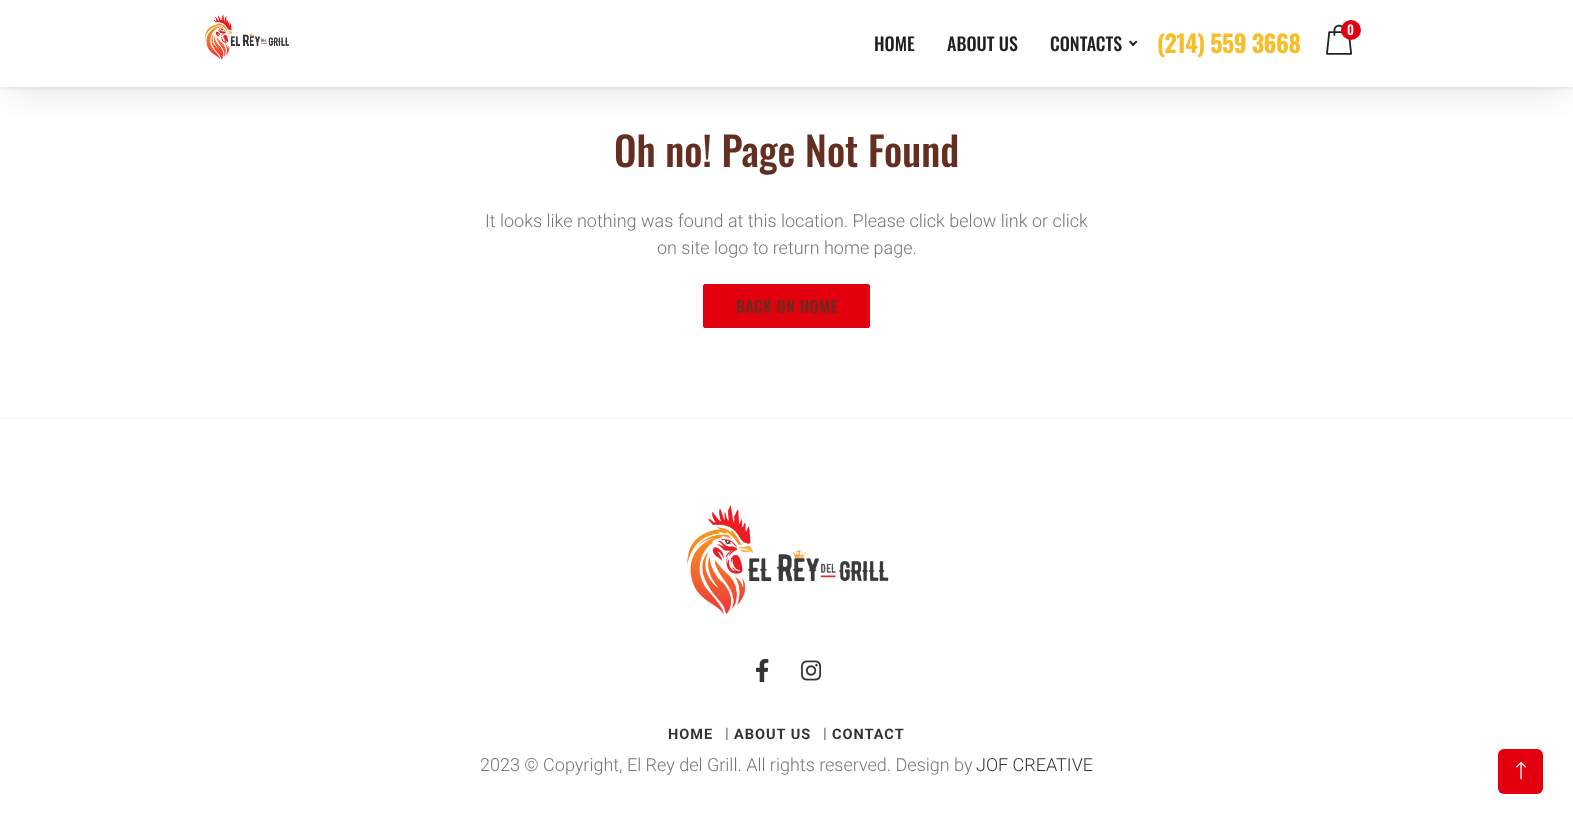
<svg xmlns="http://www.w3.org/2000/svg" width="1573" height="824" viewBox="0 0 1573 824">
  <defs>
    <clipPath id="clip1"><rect x="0" y="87" width="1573" height="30"/></clipPath>
  </defs>
  <rect width="100%" height="100%" fill="rgb(255,255,255)"/>
  <rect x="0" y="2" width="1573" height="87" fill="rgba(96,96,96,0.1)" filter="blur(1.5px)"/>
  <rect x="0" y="1" width="1573" height="86" fill="rgb(255,255,255)"/>
  <g clip-path="url(#clip1)">
    <rect x="5" y="42" width="1563" height="50" rx="25" fill="rgba(0,0,0,0.1)" filter="blur(20px)"/>
  </g>
  <image x="205" y="14" width="85" height="46" href="pic1.png"/>
  <image x="1326" y="24" width="26" height="31" href="pic2.png"/>
  <circle cx="1351" cy="30" r="10" fill="rgb(227,0,14)"/>
  <text x="1347" y="35" font-family="Oswald" font-size="13" font-weight="500" fill="rgb(255,255,255)">0</text>
  <g font-family="Oswald" font-size="18" font-weight="500" fill="rgb(33,33,33)">
    <text x="874" y="51">HOME</text>
    <text x="947" y="51">ABOUT US</text>
    <text x="1050" y="51">CONTACTS</text>
  </g>
  <path d="M1137.5 42L1133 46L1131.5 45L1136 40.5Z" fill="rgb(33,33,33)"/>
  <path d="M1134.5 45L1133 46L1129 42L1130.5 40.5Z" fill="rgb(33,33,33)"/>
  <text x="1157" y="53" font-family="Oswald" font-size="24" font-weight="bold" letter-spacing="-0.5" fill="rgb(247,190,39)">(214) 559 3668</text>
  <text x="614" y="167" font-family="Oswald" font-size="40" font-weight="500" fill="rgb(100,47,33)">Oh no! Page Not Found</text>
  <g font-family="Roboto" font-size="18" font-weight="300" fill="rgb(117,117,117)">
    <text x="485" y="227">It looks like nothing was found at this location. Please click below link or click</text>
    <text x="657" y="254">on site logo to return home page.</text>
  </g>
  <rect x="703.5" y="284.5" width="166" height="43" rx="1.5" fill="rgb(227,0,14)" stroke="rgb(227,0,14)"/>
  <text x="736" y="313" font-family="Oswald" font-size="16" font-weight="500" letter-spacing="0.5" fill="rgb(100,47,33)">BACK ON HOME</text>
  <rect x="0" y="418" width="1573" height="1" fill="rgb(246,249,250)"/>
  <image x="687" y="505" width="202" height="109" href="pic3.png"/>
  <image x="756" y="659" width="13" height="23" href="pic4.png"/>
  <image x="801" y="660" width="21" height="21" href="pic5.png"/>
  <text x="668" y="739" font-family="Roboto" font-size="14.5" font-weight="bold" letter-spacing="1" fill="rgb(51,51,51)">HOME</text>
  <text x="725" y="738" font-family="Roboto" font-size="14.5" font-weight="bold" letter-spacing="1" fill="rgb(117,117,117)">|</text>
  <text x="734" y="739" font-family="Roboto" font-size="14.5" font-weight="bold" letter-spacing="1" fill="rgb(51,51,51)">ABOUT US</text>
  <text x="823" y="738" font-family="Roboto" font-size="14.5" font-weight="bold" letter-spacing="1" fill="rgb(117,117,117)">|</text>
  <text x="832" y="739" font-family="Roboto" font-size="14.5" font-weight="bold" letter-spacing="1" fill="rgb(51,51,51)">CONTACT</text>
  <text x="480" y="771" font-family="Roboto" font-size="18" font-weight="300" fill="rgb(117,117,117)">2023 © Copyright, El Rey del Grill. All rights reserved. Design by</text>
  <text x="976" y="771" font-family="Roboto" font-size="18" font-weight="300" fill="rgb(51,51,51)">JOF CREATIVE</text>
  <rect x="1498" y="749" width="45" height="45" rx="6" fill="rgb(227,0,14)"/>
  <image x="1516" y="761" width="10" height="19" href="pic6.png"/>
</svg>
